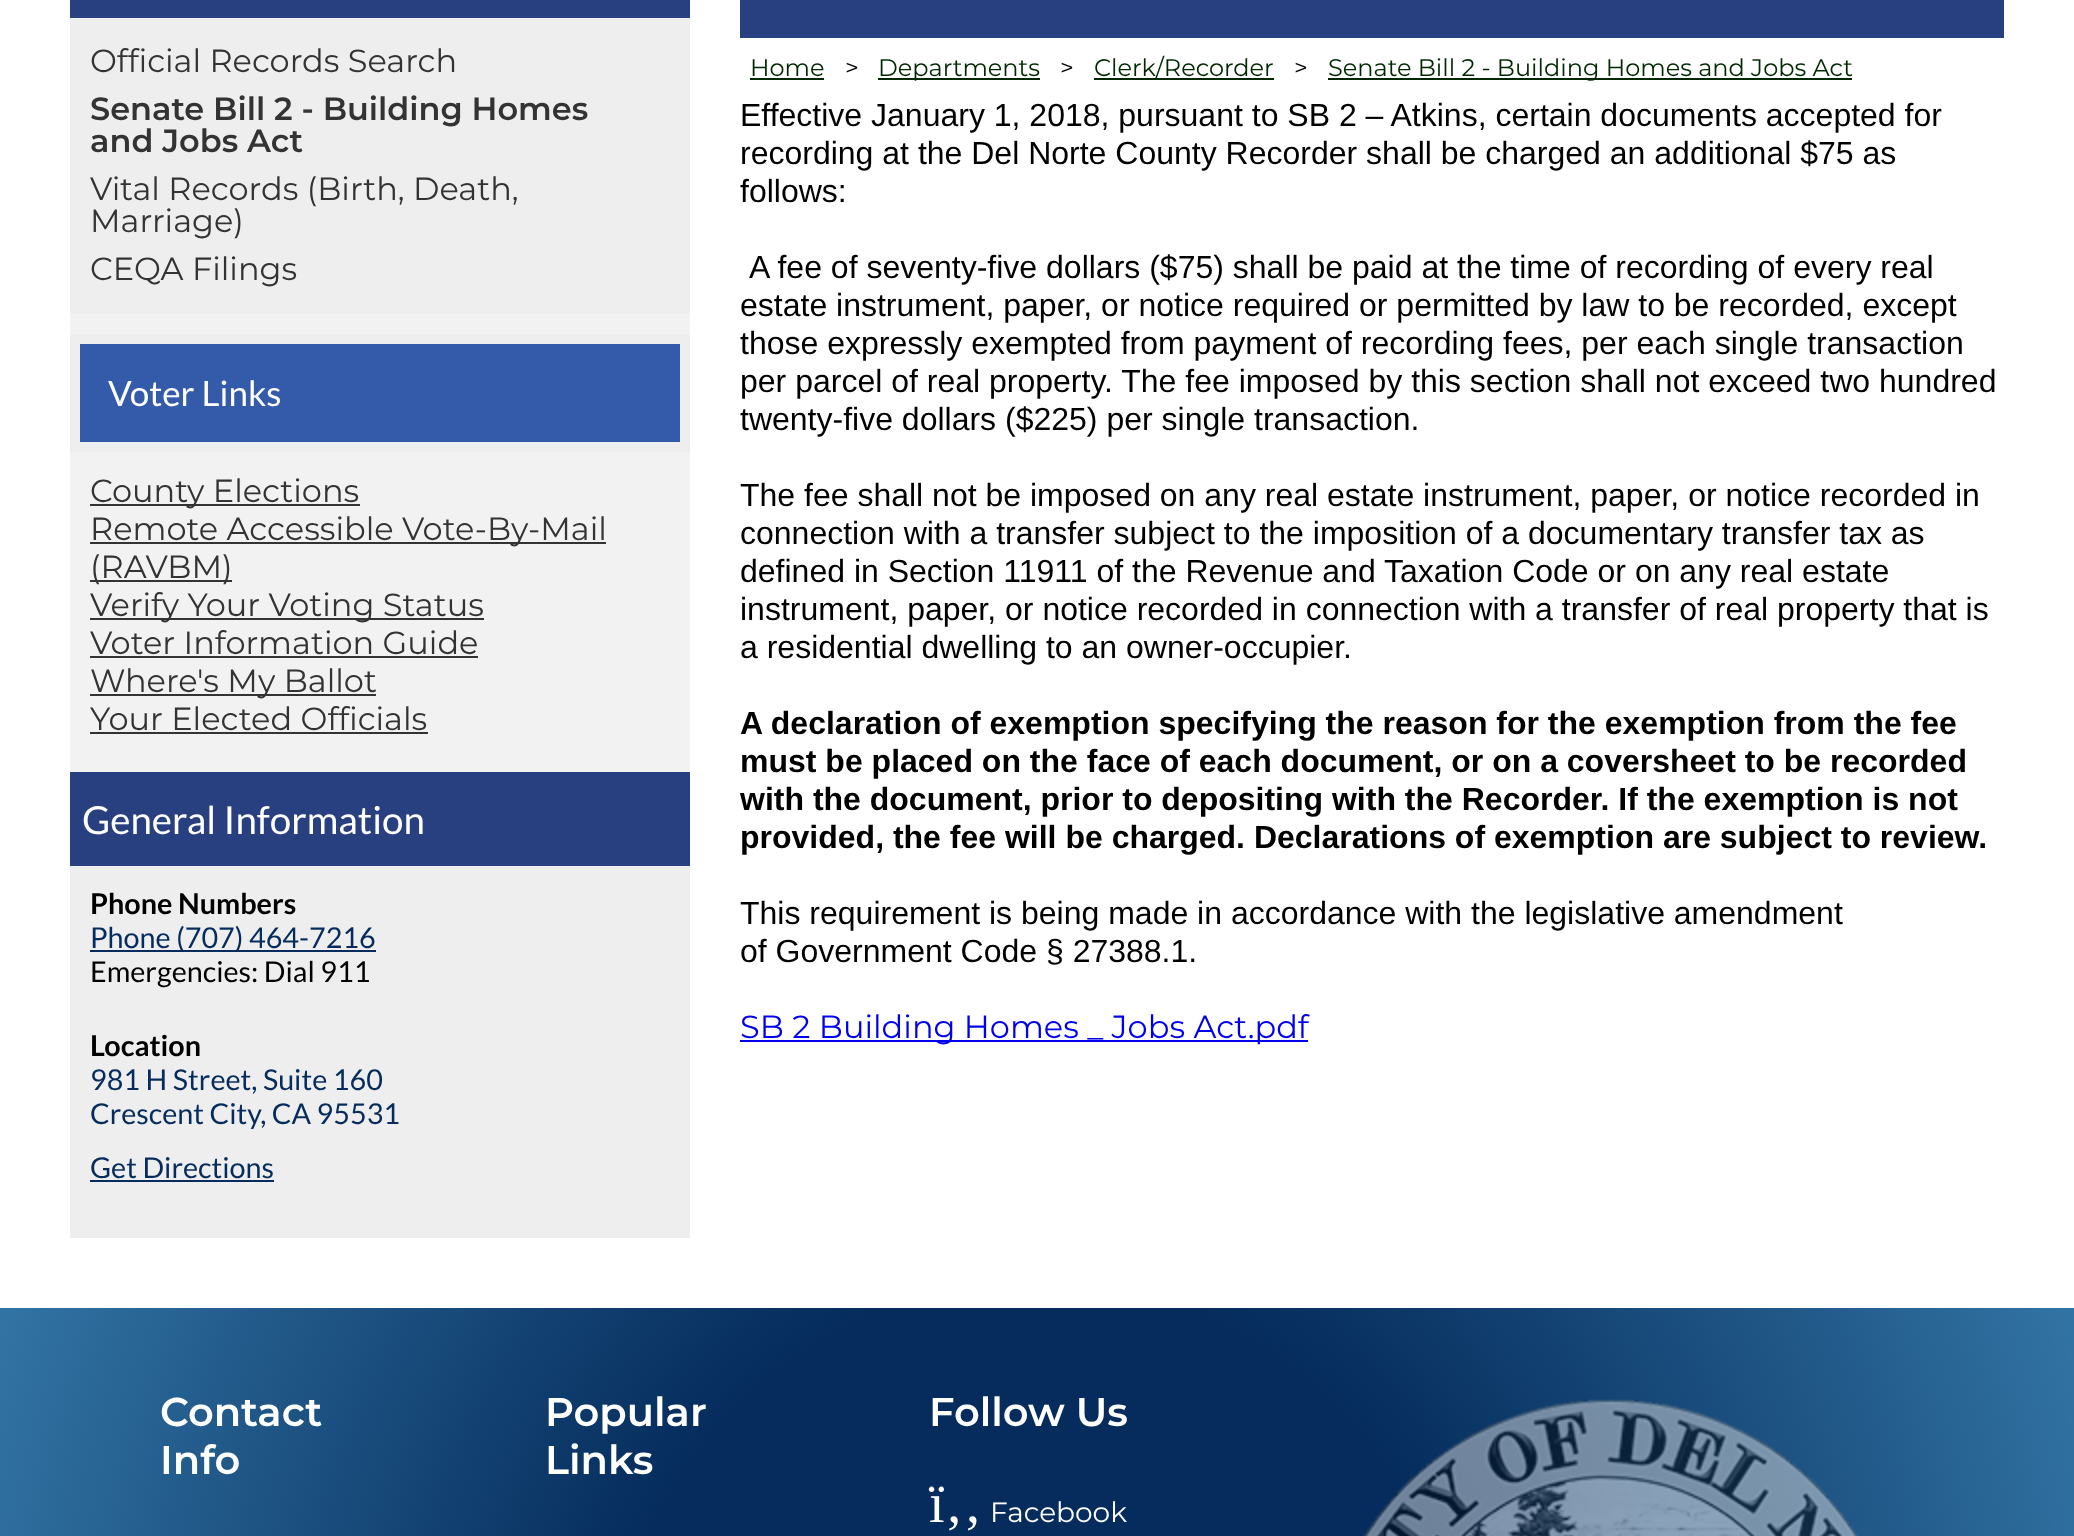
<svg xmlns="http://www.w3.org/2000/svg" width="2074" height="1536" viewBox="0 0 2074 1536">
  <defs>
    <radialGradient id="g1" gradientUnits="userSpaceOnUse" cx="1037" cy="1707" r="1111"><stop offset="0.38" stop-color="rgb(5,44,92)"/><stop offset="1" stop-color="rgb(50,116,164)"/></radialGradient>
  </defs>
  <rect width="100%" height="100%" fill="rgb(255,255,255)"/>
  <rect x="70" y="314" width="620" height="458" fill="rgb(242,242,242)"/>
  <rect x="70" y="0" width="620" height="18" fill="rgb(41,64,128)"/>
  <rect x="70" y="18" width="620" height="296" fill="rgb(238,238,238)"/>
  <text x="90" y="72" font-family="Montserrat" font-size="32" fill="rgb(51,51,51)">Official Records Search</text>
  <g font-family="Montserrat" font-size="32" font-weight="600" fill="rgb(51,51,51)">
    <text>
      <tspan x="90" y="120">Senate Bill 2 - Building Homes</tspan>
      <tspan x="90" y="152">and Jobs Act</tspan>
    </text>
  </g>
  <g font-family="Montserrat" font-size="32" fill="rgb(51,51,51)">
    <text>
      <tspan x="90" y="200">Vital Records (Birth, Death,</tspan>
      <tspan x="90" y="232">Marriage)</tspan>
      <tspan x="90" y="280">CEQA Filings</tspan>
    </text>
  </g>
  <rect x="75" y="339" width="610" height="108" fill="rgb(51,91,169)" stroke="rgb(238,238,238)" stroke-width="10"/>
  <text x="108" y="406" font-family="Lato" font-size="35" fill="rgb(255,255,255)">Voter Links</text>
  <rect x="90" y="504" width="270" height="2" fill="rgb(51,51,51)"/>
  <text x="90" y="502" font-family="Montserrat" font-size="32" fill="rgb(51,51,51)">County Elections</text>
  <rect x="90" y="542" width="516" height="2" fill="rgb(51,51,51)"/>
  <text x="90" y="540" font-family="Montserrat" font-size="32" fill="rgb(51,51,51)">Remote Accessible Vote-By-Mail</text>
  <rect x="90" y="580" width="142" height="2" fill="rgb(51,51,51)"/>
  <text x="90" y="578" font-family="Montserrat" font-size="32" fill="rgb(51,51,51)">(RAVBM)</text>
  <rect x="90" y="618" width="394" height="2" fill="rgb(51,51,51)"/>
  <g font-family="Montserrat" font-size="32" fill="rgb(51,51,51)">
    <text>
      <tspan x="90" y="616">Verify Your Voting Status</tspan>
      <tspan x="90" y="654">Voter Information Guide</tspan>
    </text>
  </g>
  <rect x="90" y="656" width="388" height="2" fill="rgb(51,51,51)"/>
  <rect x="90" y="694" width="286" height="2" fill="rgb(51,51,51)"/>
  <g font-family="Montserrat" font-size="32" fill="rgb(51,51,51)">
    <text>
      <tspan x="90" y="692">Where's My Ballot</tspan>
      <tspan x="90" y="730">Your Elected Officials</tspan>
    </text>
  </g>
  <rect x="90" y="732" width="338" height="2" fill="rgb(51,51,51)"/>
  <rect x="70" y="772" width="620" height="94" fill="rgb(41,64,128)"/>
  <text x="82" y="834" font-family="Lato" font-size="38.5" fill="rgb(255,255,255)">General Information</text>
  <rect x="70" y="866" width="620" height="372" fill="rgb(238,238,238)"/>
  <text x="90" y="914" font-family="Lato" font-size="28.75" font-weight="bold" fill="rgb(0,0,0)">Phone Numbers</text>
  <rect x="90" y="950" width="286" height="2" fill="rgb(5,44,92)"/>
  <text x="90" y="948" font-family="Lato" font-size="28.75" fill="rgb(5,44,92)">Phone (707) 464-7216</text>
  <text x="90" y="982" font-family="Lato" font-size="28.75" fill="rgb(0,0,0)">Emergencies: Dial 911</text>
  <text x="90" y="1056" font-family="Lato" font-size="28.75" font-weight="bold" fill="rgb(0,0,0)">Location</text>
  <g font-family="Lato" font-size="28.75" fill="rgb(5,44,92)">
    <text>
      <tspan x="90" y="1090">981 H Street, Suite 160</tspan>
      <tspan x="90" y="1124">Crescent City, CA 95531</tspan>
      <tspan x="90" y="1178">Get Directions</tspan>
    </text>
  </g>
  <rect x="90" y="1180" width="184" height="2" fill="rgb(5,44,92)"/>
  <rect x="740" y="0" width="1264" height="38" fill="rgb(41,64,128)"/>
  <text x="750" y="76" font-family="Montserrat" font-size="24" fill="rgb(0,40,0)">Home</text>
  <rect x="750" y="78" width="74" height="2" fill="rgb(0,40,0)"/>
  <text x="845" y="76" font-family="Montserrat" font-size="24" fill="rgb(0,0,0)">&gt;</text>
  <rect x="878" y="78" width="162" height="2" fill="rgb(0,40,0)"/>
  <text x="878" y="76" font-family="Montserrat" font-size="24" fill="rgb(0,40,0)">Departments</text>
  <text x="1060" y="76" font-family="Montserrat" font-size="24" fill="rgb(0,0,0)">&gt;</text>
  <rect x="1094" y="78" width="180" height="2" fill="rgb(0,40,0)"/>
  <text x="1094" y="76" font-family="Montserrat" font-size="24" fill="rgb(0,40,0)">Clerk/Recorder</text>
  <text x="1294" y="76" font-family="Montserrat" font-size="24" fill="rgb(0,0,0)">&gt;</text>
  <rect x="1328" y="78" width="524" height="2" fill="rgb(0,40,0)"/>
  <text x="1328" y="76" font-family="Montserrat" font-size="24" fill="rgb(0,40,0)">Senate Bill 2 - Building Homes and Jobs Act</text>
  <g font-family="Liberation Sans" font-size="32" fill="rgb(0,0,0)">
    <text>
      <tspan x="740" y="126">Effective January 1, 2018, pursuant to SB 2 – Atkins, certain documents accepted for</tspan>
      <tspan x="740" y="164">recording at the Del Norte County Recorder shall be charged an additional $75 as</tspan>
      <tspan x="740" y="202">follows:</tspan>
    </text>
    <text x="749" y="278">A fee of seventy-five dollars ($75) shall be paid at the time of recording of every real</text>
    <text>
      <tspan x="740" y="316">estate instrument, paper, or notice required or permitted by law to be recorded, except</tspan>
      <tspan x="740" y="354">those expressly exempted from payment of recording fees, per each single transaction</tspan>
      <tspan x="740" y="392">per parcel of real property. The fee imposed by this section shall not exceed two hundred</tspan>
      <tspan x="740" y="430">twenty-five dollars ($225) per single transaction.</tspan>
    </text>
    <text>
      <tspan x="740" y="506">The fee shall not be imposed on any real estate instrument, paper, or notice recorded in</tspan>
      <tspan x="740" y="544">connection with a transfer subject to the imposition of a documentary transfer tax as</tspan>
      <tspan x="740" y="582">defined in Section 11911 of the Revenue and Taxation Code or on any real estate</tspan>
      <tspan x="740" y="620">instrument, paper, or notice recorded in connection with a transfer of real property that is</tspan>
      <tspan x="740" y="658">a residential dwelling to an owner-occupier.</tspan>
    </text>
  </g>
  <g font-family="Liberation Sans" font-size="32" font-weight="bold" fill="rgb(0,0,0)">
    <text>
      <tspan x="740" y="734">A declaration of exemption specifying the reason for the exemption from the fee</tspan>
      <tspan x="740" y="772">must be placed on the face of each document, or on a coversheet to be recorded</tspan>
      <tspan x="740" y="810">with the document, prior to depositing with the Recorder. If the exemption is not</tspan>
      <tspan x="740" y="848">provided, the fee will be charged. Declarations of exemption are subject to review.</tspan>
    </text>
  </g>
  <g font-family="Liberation Sans" font-size="32" fill="rgb(0,0,0)">
    <text>
      <tspan x="740" y="924">This requirement is being made in accordance with the legislative amendment</tspan>
      <tspan x="740" y="962">of Government Code § 27388.1.</tspan>
    </text>
  </g>
  <rect x="740" y="1040" width="568" height="2" fill="rgb(0,0,238)"/>
  <text x="740" y="1038" font-family="Montserrat" font-size="32" fill="rgb(0,0,238)">SB 2 Building Homes _ Jobs Act.pdf</text>
  <rect x="0" y="1308" width="2074" height="228" fill="url(#g1)"/>
  <g font-family="Montserrat" font-size="40" font-weight="600" fill="rgb(255,255,255)">
    <text>
      <tspan x="160" y="1426">Contact</tspan>
      <tspan x="160" y="1474">Info</tspan>
    </text>
    <text>
      <tspan x="545" y="1426">Popular</tspan>
      <tspan x="545" y="1474">Links</tspan>
    </text>
    <text x="929" y="1426">Follow Us</text>
  </g>
  <text x="929" y="1522" font-family="Liberation Serif" font-size="56" fill="rgb(255,255,255)">ï‚‚</text>
  <text x="990" y="1522" font-family="Montserrat" font-size="28" fill="rgb(255,255,255)">Facebook</text>
  <image x="1363" y="1399" width="496" height="137" href="pic1.png"/>
</svg>
